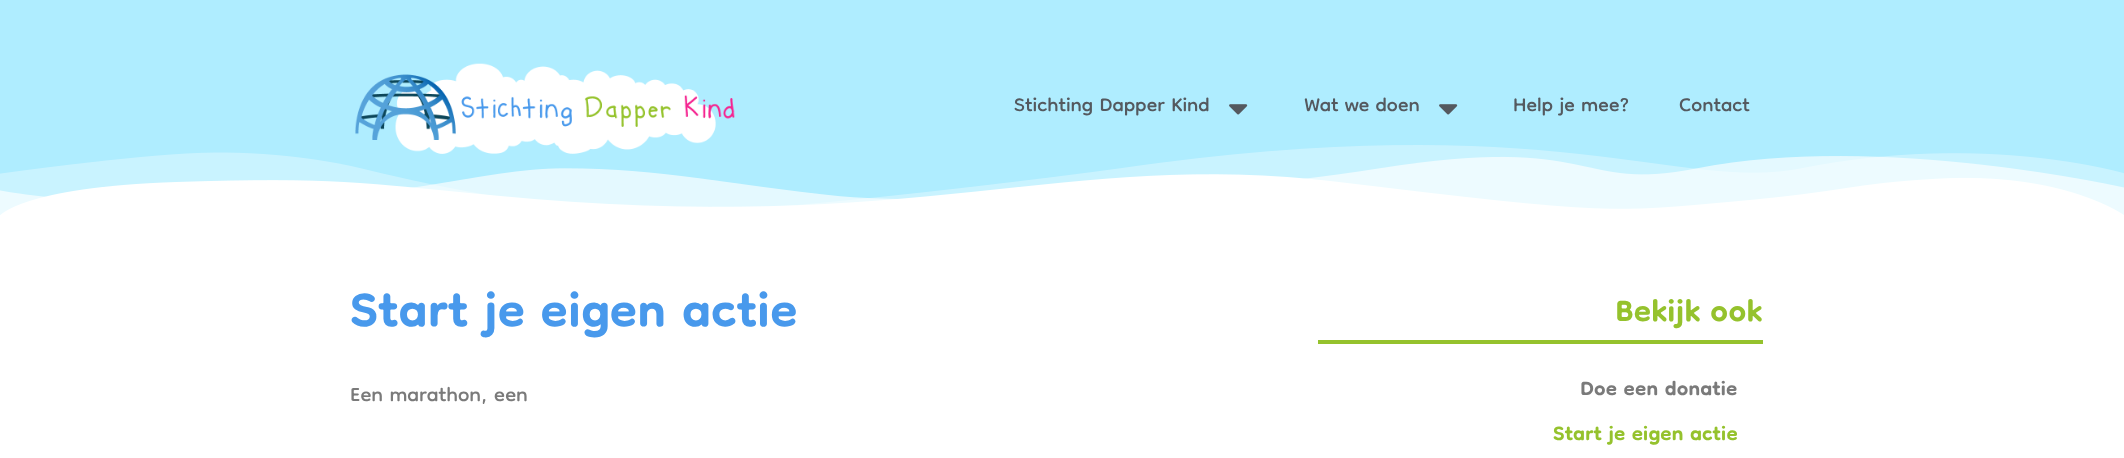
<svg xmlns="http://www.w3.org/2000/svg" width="2124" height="458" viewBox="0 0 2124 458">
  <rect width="100%" height="100%" fill="rgb(255,255,255)"/>
  <rect x="0" y="0" width="2124" height="215" fill="rgb(175,237,255)"/>
  <image x="0" y="145" width="2124" height="70" href="pic3.png"/>
  <image x="355" y="63" width="380" height="91" href="pic1.png"/>
  <text x="1014" y="111" font-family="Dongle" font-size="31.25" fill="rgb(84,89,95)">Stichting Dapper Kind</text>
  <image x="1229" y="104" width="19" height="11" href="pic2.png"/>
  <text x="1304" y="111" font-family="Dongle" font-size="31.25" fill="rgb(84,89,95)">Wat we doen</text>
  <image x="1439" y="104" width="19" height="11" href="pic2.png"/>
  <g font-family="Dongle" font-size="31.25" fill="rgb(84,89,95)">
    <text x="1513" y="111">Help je mee?</text>
    <text x="1679" y="111">Contact</text>
  </g>
  <text x="350" y="326" font-family="Dongle" font-size="78.75" font-weight="bold" fill="rgb(72,153,236)">Start je eigen actie</text>
  <text x="350" y="401" font-family="Dongle" font-size="32.5" fill="rgb(122,122,122)">Een marathon, een</text>
  <rect x="1318" y="340" width="445" height="4" fill="rgb(149,194,45)"/>
  <text x="1615" y="321" font-family="Dongle" font-size="50" font-weight="bold" fill="rgb(149,194,45)">Bekijk ook</text>
  <text x="1580" y="395" font-family="Dongle" font-size="32.5" font-weight="bold" fill="rgb(122,122,122)">Doe een donatie</text>
  <text x="1553" y="440" font-family="Dongle" font-size="32.5" font-weight="bold" fill="rgb(149,194,45)">Start je eigen actie</text>
</svg>
